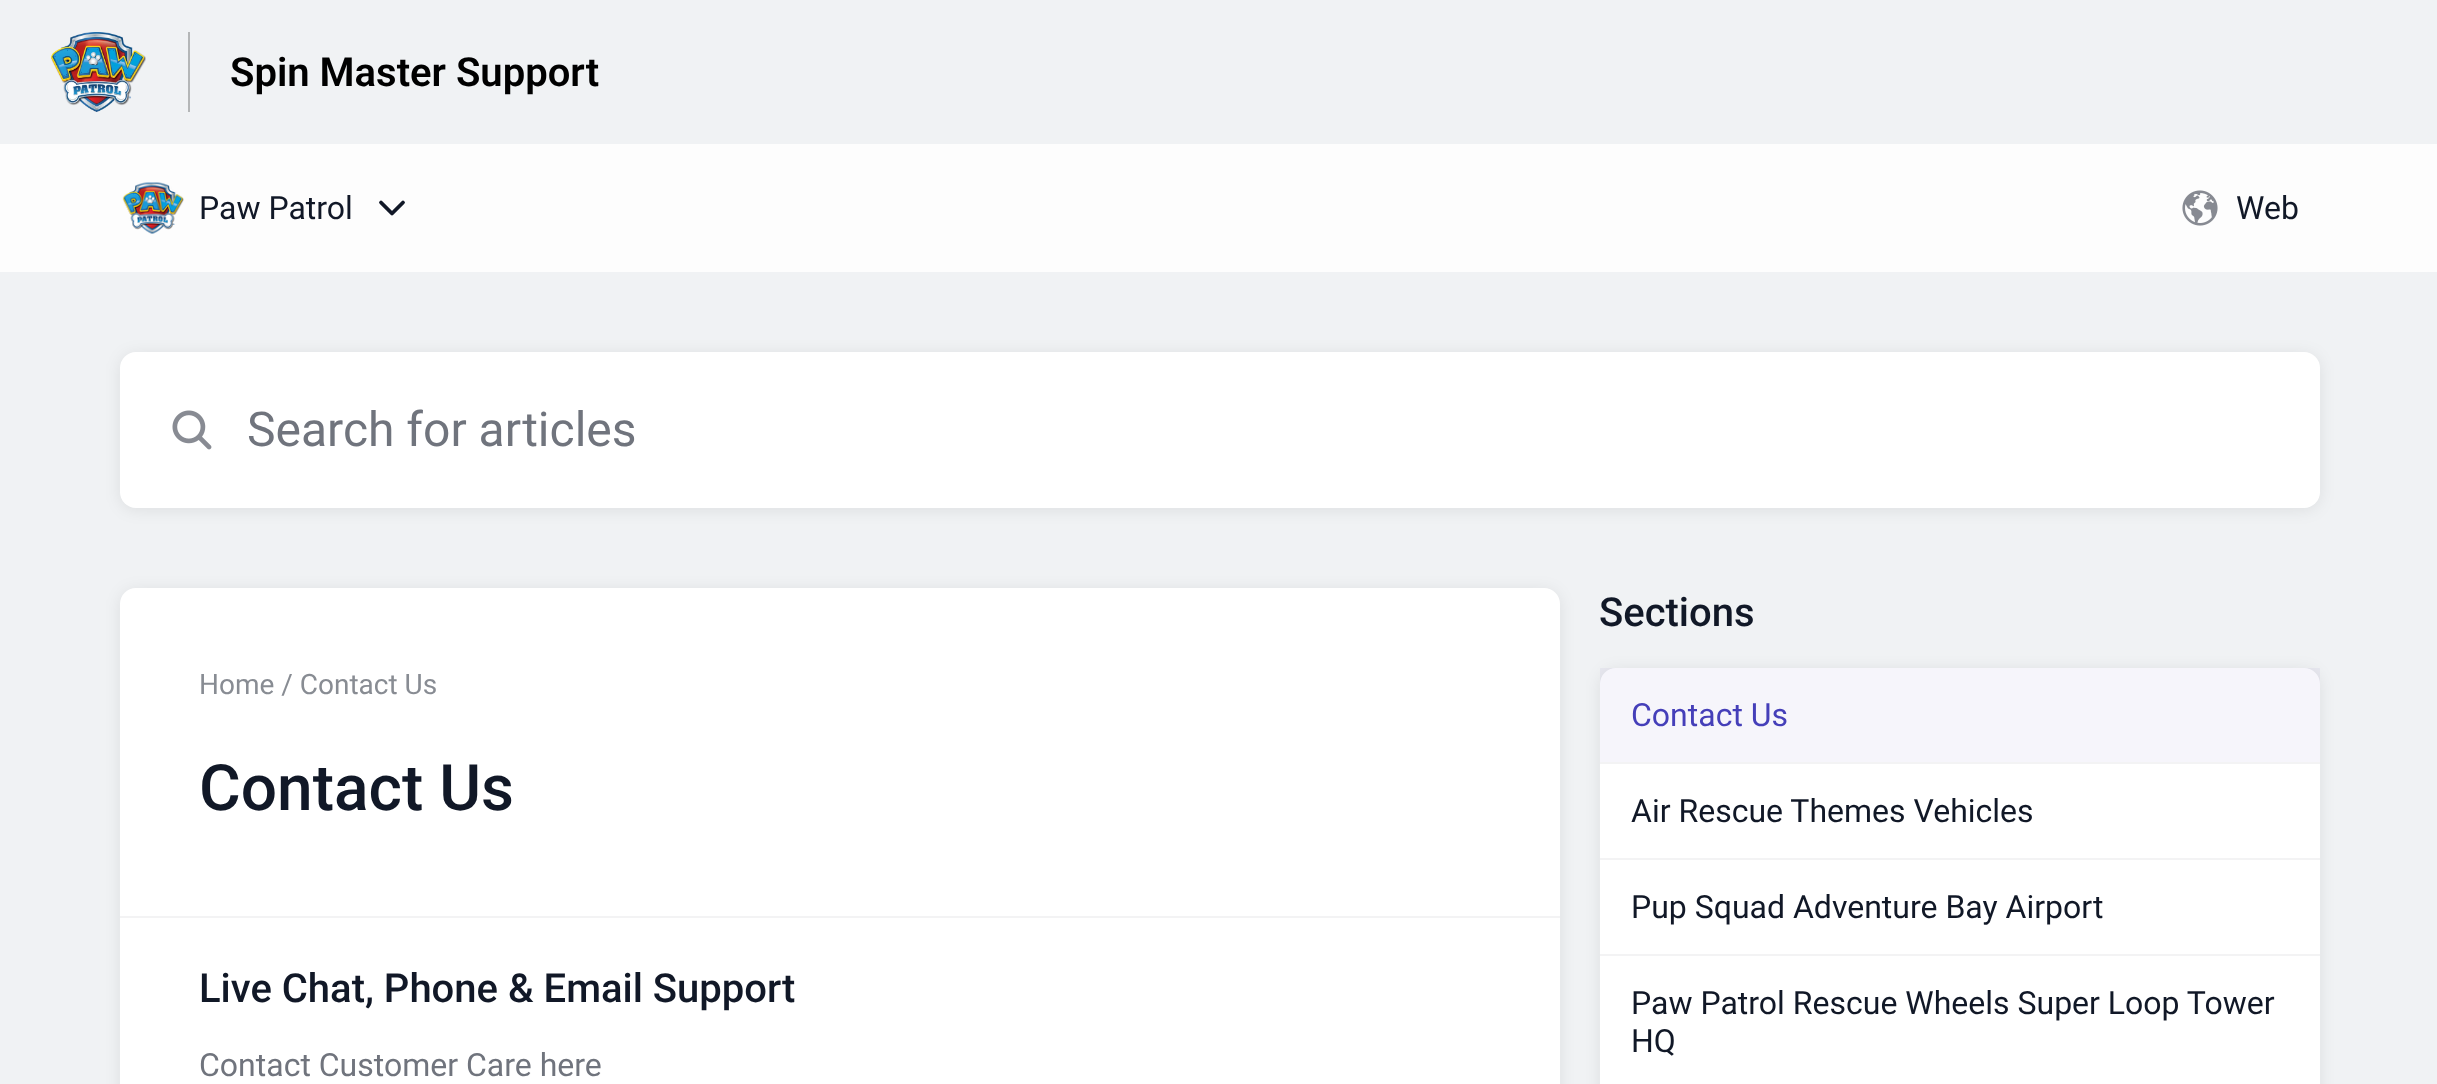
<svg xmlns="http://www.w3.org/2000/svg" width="2437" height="1084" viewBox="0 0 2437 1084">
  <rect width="100%" height="100%" fill="rgb(253,253,253)"/>
  <rect x="0" y="0" width="2437" height="144" fill="rgb(240,242,244)"/>
  <rect x="188" y="32" width="2" height="80" fill="rgb(180,182,183)"/>
  <image x="51" y="32" width="95" height="80" href="pic1.png"/>
  <text x="230" y="86" font-family="Roboto" font-size="40" font-weight="600" fill="rgb(0,0,0)">Spin Master Support</text>
  <image x="122" y="182" width="62" height="52" href="pic2.png"/>
  <text x="199" y="219" font-family="Roboto" font-size="32" fill="rgb(17,24,39)">Paw Patrol</text>
  <path d="M381 202.5L392 213.5L403 202.5" fill="none" stroke="rgb(17,24,39)" stroke-width="3.8" stroke-linecap="round" stroke-linejoin="round"/>
  <image x="2182" y="190" width="36" height="36" href="pic3.png"/>
  <text x="2236" y="219" font-family="Roboto" font-size="32" fill="rgb(17,24,39)">Web</text>
  <rect x="0" y="272" width="2437" height="812" fill="rgb(240,242,244)"/>
  <rect x="120" y="354" width="2200" height="156" rx="16" fill="rgba(0,0,0,0.08)" filter="blur(8px)"/>
  <rect x="120" y="352" width="2200" height="156" rx="16" fill="rgb(255,255,255)"/>
  <image x="172" y="410" width="40" height="40" href="pic4.png"/>
  <text x="247" y="446" font-family="Roboto" font-size="48" fill="rgb(112,116,125)">Search for articles</text>
  <rect x="120" y="590" width="1440" height="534" rx="16" fill="rgba(0,0,0,0.08)" filter="blur(8px)"/>
  <path d="M136 588H1544C1553 588 1560 595 1560 604V1084H120V604C120 595 127 588 136 588Z" fill="rgb(255,255,255)"/>
  <rect x="120" y="916" width="1440" height="2" fill="rgb(243,243,244)"/>
  <text x="199" y="694" font-family="Roboto" font-size="28" fill="rgb(136,140,147)">Home / Contact Us</text>
  <text x="199" y="810" font-family="Roboto" font-size="64" font-weight="500" fill="rgb(17,24,39)">Contact Us</text>
  <text x="199" y="1002" font-family="Roboto" font-size="40" font-weight="500" fill="rgb(17,24,39)">Live Chat, Phone &amp; Email Support</text>
  <text x="199" y="1076" font-family="Roboto" font-size="32" fill="rgb(112,116,125)">Contact Customer Care here</text>
  <text x="1599" y="626" font-family="Roboto" font-size="40" font-weight="500" fill="rgb(17,24,39)">Sections</text>
  <rect x="1600" y="670" width="720" height="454" rx="16" fill="rgba(0,0,0,0.08)" filter="blur(8px)"/>
  <path d="M1616 668H2304C2313 668 2320 675 2320 684V1084H1600V684C1600 675 1607 668 1616 668Z" fill="rgb(255,255,255)"/>
  <rect x="1600" y="762" width="720" height="2" fill="rgb(243,243,244)"/>
  <rect x="1600" y="668" width="720" height="94" fill="rgba(69,63,185,0.05)"/>
  <text x="1631" y="726" font-family="Roboto" font-size="32" fill="rgb(69,63,185)">Contact Us</text>
  <rect x="1600" y="858" width="720" height="2" fill="rgb(243,243,244)"/>
  <text x="1631" y="822" font-family="Roboto" font-size="32" fill="rgb(17,24,39)">Air Rescue Themes Vehicles</text>
  <rect x="1600" y="954" width="720" height="2" fill="rgb(243,243,244)"/>
  <g font-family="Roboto" font-size="32" fill="rgb(17,24,39)">
    <text x="1631" y="918">Pup Squad Adventure Bay Airport</text>
    <text>
      <tspan x="1631" y="1014">Paw Patrol Rescue Wheels Super Loop Tower</tspan>
      <tspan x="1631" y="1052">HQ</tspan>
    </text>
  </g>
</svg>
